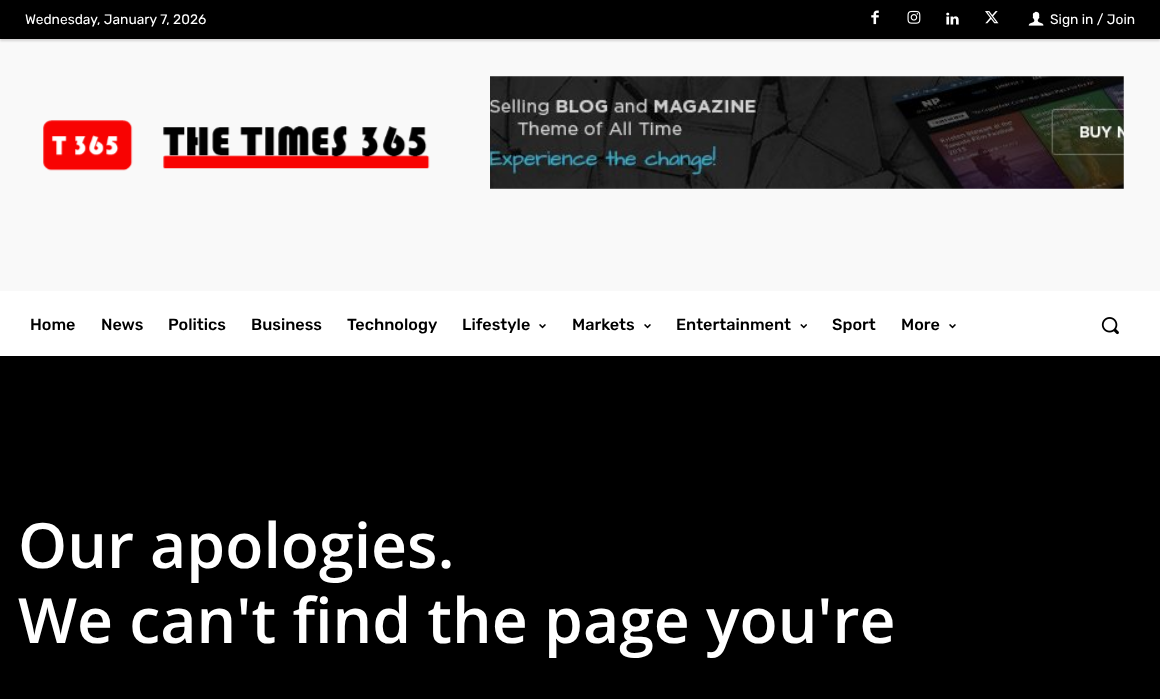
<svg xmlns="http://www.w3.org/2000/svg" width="1160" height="699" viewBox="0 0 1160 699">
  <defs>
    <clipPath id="clip1"><path d="M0 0H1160V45H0ZM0 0H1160V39H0Z" clip-rule="evenodd"/></clipPath>
  </defs>
  <rect width="100%" height="100%" fill="rgb(0,0,0)"/>
  <image x="871" y="10" width="8" height="15" href="pic1.png"/>
  <image x="907" y="10" width="14" height="14" href="pic2.png"/>
  <image x="946" y="12" width="13" height="13" href="pic3.png"/>
  <image x="985" y="11" width="14" height="13" href="pic4.png"/>
  <image x="1028" y="11" width="16" height="15" href="pic5.png"/>
  <rect x="0" y="39" width="1160" height="252" fill="rgb(249,249,249)"/>
  <g clip-path="url(#clip1)">
    <rect x="0" y="3" width="1160" height="38" fill="rgba(10,0,0,0.15)" filter="blur(1px)"/>
  </g>
  <g font-family="Rubik" font-size="13.75" fill="rgb(255,255,255)">
    <text x="25" y="24">Wednesday, January 7, 2026</text>
    <text x="1050" y="24">Sign in / Join</text>
  </g>
  <image x="43" y="120" width="387" height="51" href="pic6.png"/>
  <image x="490" y="76" width="634" height="113" href="pic7.png"/>
  <rect x="0" y="291" width="1160" height="65" fill="rgb(255,255,255)"/>
  <g font-family="Rubik" font-size="16.25" font-weight="500" fill="rgb(0,0,0)">
    <text x="30" y="330">Home</text>
    <text x="101" y="330">News</text>
    <text x="168" y="330">Politics</text>
    <text x="251" y="330">Business</text>
    <text x="347" y="330">Technology</text>
    <text x="462" y="330">Lifestyle</text>
  </g>
  <image x="539" y="324" width="7" height="5" href="pic8.png"/>
  <text x="572" y="330" font-family="Rubik" font-size="16.25" font-weight="500" fill="rgb(0,0,0)">Markets</text>
  <image x="644" y="324" width="7" height="5" href="pic8.png"/>
  <text x="676" y="330" font-family="Rubik" font-size="16.25" font-weight="500" fill="rgb(0,0,0)">Entertainment</text>
  <image x="800" y="324" width="7" height="5" href="pic9.png"/>
  <g font-family="Rubik" font-size="16.25" font-weight="500" fill="rgb(0,0,0)">
    <text x="832" y="330">Sport</text>
    <text x="901" y="330">More</text>
  </g>
  <image x="949" y="324" width="7" height="5" href="pic8.png"/>
  <image x="1101" y="317" width="18" height="18" href="pic10.png"/>
  <g font-family="Open Sans" font-size="62.5" font-weight="600" fill="rgb(255,255,255)">
    <text>
      <tspan x="18" y="568">Our apologies.</tspan>
      <tspan x="18" y="643">We can't find the page you're</tspan>
    </text>
  </g>
</svg>
